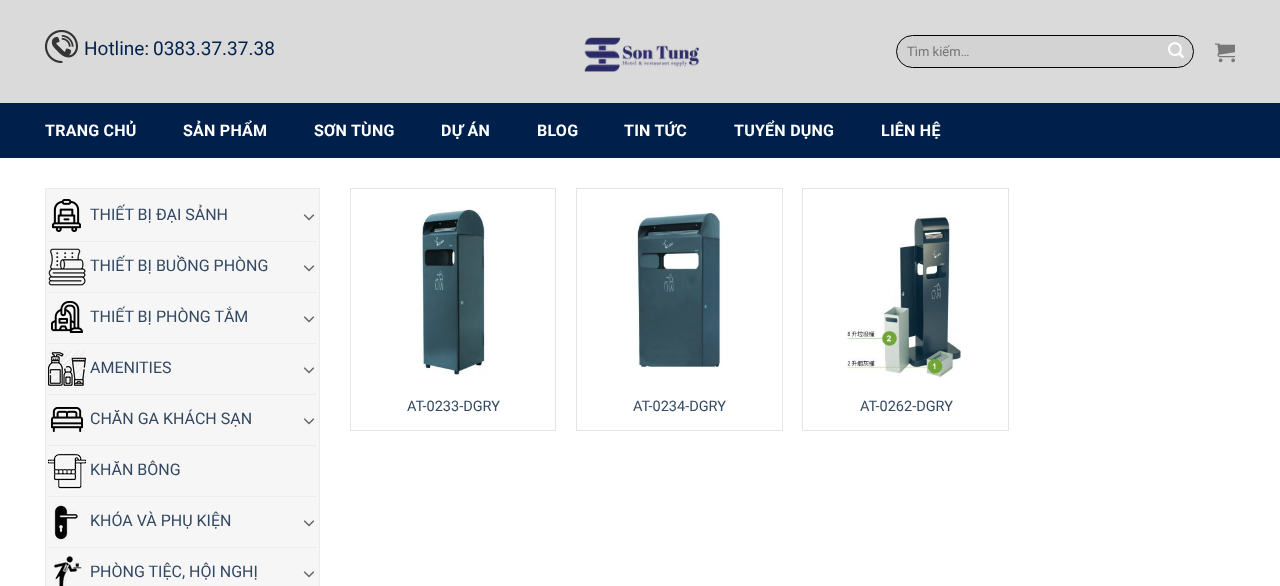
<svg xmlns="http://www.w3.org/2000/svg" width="1280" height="586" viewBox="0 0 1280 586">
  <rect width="100%" height="100%" fill="rgb(255,255,255)"/>
  <rect x="0" y="0" width="1280" height="103" fill="rgb(218,218,218)"/>
  <image x="45" y="30" width="33" height="33" href="pic1.png"/>
  <g font-family="Roboto" font-size="19" fill="rgb(0,32,76)">
    <text x="84" y="55">Hotline:</text>
    <text x="153" y="55">0383.37.37.38</text>
  </g>
  <image x="584" y="37" width="116" height="35" href="pic2.png"/>
  <rect x="896.5" y="35.5" width="297" height="32" rx="16" fill="rgb(211,211,211)" stroke="rgb(0,0,0)"/>
  <text x="907" y="56" font-family="Roboto" font-size="13" fill="rgb(117,117,117)">Tìm kiếm…</text>
  <image x="1168" y="42" width="16" height="16" href="pic3.png"/>
  <image x="1215" y="43" width="20" height="20" href="pic4.png"/>
  <rect x="0" y="103" width="1280" height="55" fill="rgb(0,32,76)"/>
  <g font-family="Roboto" font-size="16" font-weight="bold" letter-spacing="0.25" fill="rgb(255,255,255)">
    <text x="45" y="136">TRANG CHỦ</text>
    <text x="183" y="136">SẢN PHẨM</text>
    <text x="314" y="136">SƠN TÙNG</text>
    <text x="441" y="136">DỰ ÁN</text>
    <text x="537" y="136">BLOG</text>
    <text x="624" y="136">TIN TỨC</text>
    <text x="734" y="136">TUYỂN DỤNG</text>
    <text x="881" y="136">LIÊN HỆ</text>
  </g>
  <rect x="45.5" y="188.5" width="274" height="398" fill="rgb(246,246,246)" stroke="rgb(236,236,236)"/>
  <image x="52" y="199" width="29" height="33" href="pic5.png"/>
  <text x="90" y="220" font-family="Roboto" font-size="16" fill="rgb(51,72,98)">THIẾT BỊ ĐẠI SẢNH</text>
  <image x="303" y="214" width="12" height="7" href="pic6.png"/>
  <rect x="48" y="241" width="269" height="1" fill="rgb(236,236,236)"/>
  <image x="48" y="248" width="38" height="38" href="pic7.png"/>
  <text x="90" y="271" font-family="Roboto" font-size="16" fill="rgb(51,72,98)">THIẾT BỊ BUỒNG PHÒNG</text>
  <image x="303" y="265" width="12" height="7" href="pic6.png"/>
  <rect x="48" y="292" width="269" height="1" fill="rgb(236,236,236)"/>
  <image x="51" y="301" width="32" height="32" href="pic8.png"/>
  <text x="90" y="322" font-family="Roboto" font-size="16" fill="rgb(51,72,98)">THIẾT BỊ PHÒNG TẮM</text>
  <image x="303" y="316" width="12" height="7" href="pic6.png"/>
  <rect x="48" y="343" width="269" height="1" fill="rgb(236,236,236)"/>
  <image x="48" y="350" width="38" height="38" href="pic9.png"/>
  <text x="90" y="373" font-family="Roboto" font-size="16" fill="rgb(51,72,98)">AMENITIES</text>
  <image x="303" y="367" width="12" height="7" href="pic6.png"/>
  <rect x="48" y="394" width="269" height="1" fill="rgb(236,236,236)"/>
  <image x="51" y="407" width="32" height="25" href="pic10.png"/>
  <text x="90" y="424" font-family="Roboto" font-size="16" fill="rgb(51,72,98)">CHĂN GA KHÁCH SẠN</text>
  <image x="303" y="418" width="12" height="7" href="pic6.png"/>
  <rect x="48" y="445" width="269" height="1" fill="rgb(236,236,236)"/>
  <image x="48" y="452" width="38" height="38" href="pic11.png"/>
  <text x="90" y="475" font-family="Roboto" font-size="16" fill="rgb(51,72,98)">KHĂN BÔNG</text>
  <rect x="48" y="496" width="269" height="1" fill="rgb(236,236,236)"/>
  <image x="54" y="505" width="26" height="35" href="pic12.png"/>
  <text x="90" y="526" font-family="Roboto" font-size="16" fill="rgb(51,72,98)">KHÓA VÀ PHỤ KIỆN</text>
  <image x="303" y="520" width="12" height="7" href="pic6.png"/>
  <rect x="48" y="547" width="269" height="1" fill="rgb(236,236,236)"/>
  <image x="53" y="556" width="29" height="30" href="pic13.png"/>
  <text x="90" y="577" font-family="Roboto" font-size="16" fill="rgb(51,72,98)">PHÒNG TIỆC, HỘI NGHỊ</text>
  <image x="303" y="571" width="12" height="7" href="pic6.png"/>
  <rect x="350.5" y="188.5" width="205" height="242" fill="none" stroke="rgb(228,228,228)"/>
  <image x="420" y="209" width="69" height="166" href="pic14.png"/>
  <text x="407" y="411" font-family="Roboto" font-size="14.5" fill="rgb(51,72,98)">AT-0233-DGRY</text>
  <rect x="576.5" y="188.5" width="206" height="242" fill="none" stroke="rgb(228,228,228)"/>
  <image x="636" y="209" width="87" height="158" href="pic15.png"/>
  <text x="633" y="411" font-family="Roboto" font-size="14.5" fill="rgb(51,72,98)">AT-0234-DGRY</text>
  <rect x="802.5" y="188.5" width="206" height="242" fill="none" stroke="rgb(228,228,228)"/>
  <image x="843" y="214" width="118" height="164" href="pic16.png"/>
  <text x="860" y="411" font-family="Roboto" font-size="14.5" fill="rgb(51,72,98)">AT-0262-DGRY</text>
</svg>
